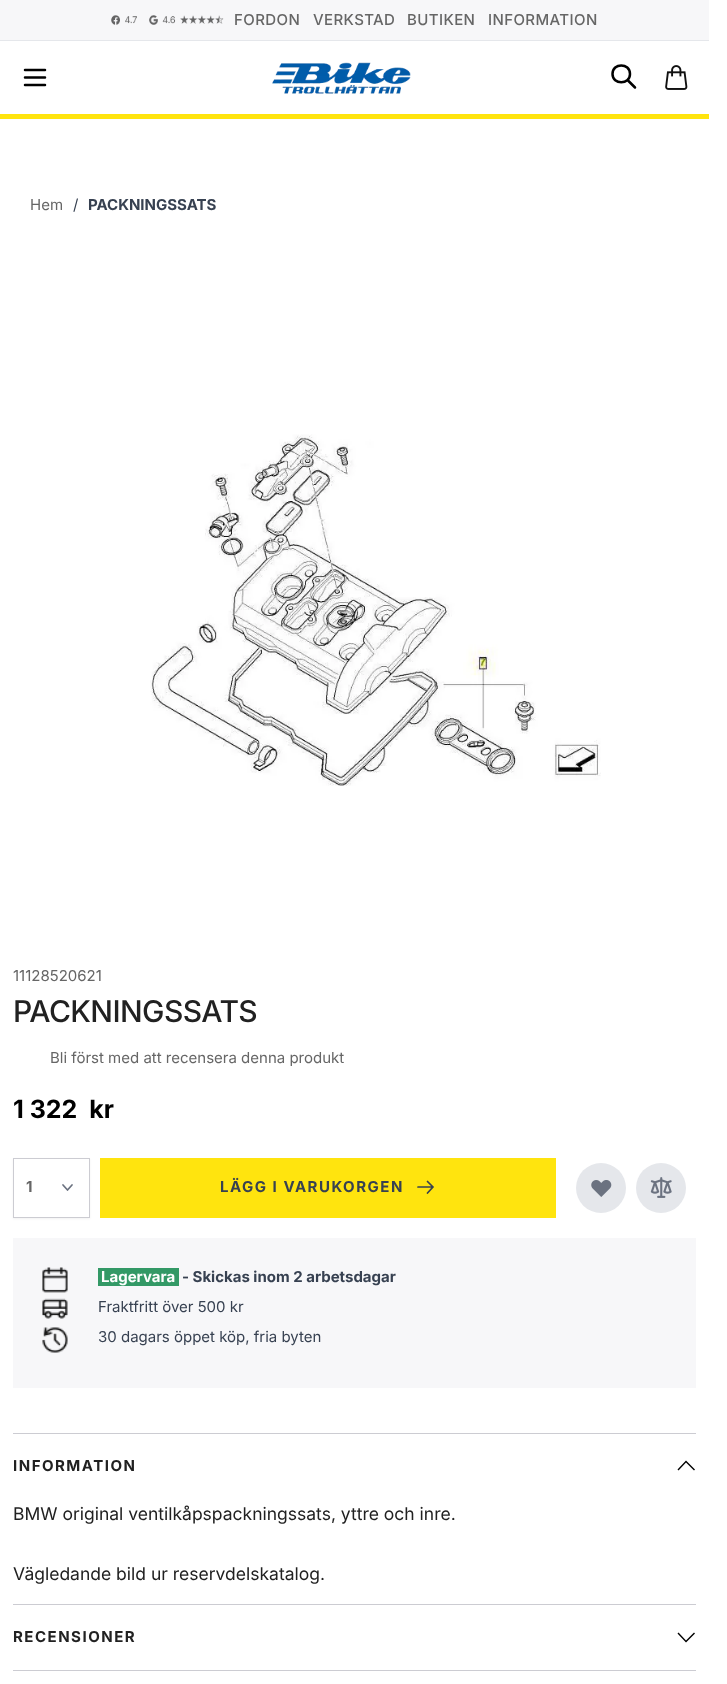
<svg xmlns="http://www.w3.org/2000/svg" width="727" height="1684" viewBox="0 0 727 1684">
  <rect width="100%" height="100%" fill="rgb(255,255,255)"/>
  <rect x="0" y="0" width="709" height="40" fill="rgb(247,247,249)"/>
  <rect x="0" y="40" width="709" height="1" fill="rgb(229,231,235)"/>
  <image x="111" y="15" width="113" height="10" href="pic1.png"/>
  <g font-family="Inter" font-size="15" font-weight="500" letter-spacing="0.4" fill="rgb(102,102,102)">
    <text x="234" y="25">FORDON</text>
    <text x="313" y="25">VERKSTAD</text>
    <text x="407" y="25">BUTIKEN</text>
    <text x="488" y="25">INFORMATION</text>
  </g>
  <rect x="0" y="114" width="709" height="5" fill="rgb(255,228,14)"/>
  <path d="M25 70H45M25 77.5H45M25 85H45" fill="none" stroke="rgb(0,0,0)" stroke-width="2.5" stroke-linecap="round" stroke-linejoin="round"/>
  <image x="272" y="62" width="139" height="32" href="pic2.png"/>
  <path d="M635 87.5L627.5 80M630 74C630 85 612.5 85 612.5 74C612.5 62.5 630 62.5 630 74Z" fill="none" stroke="rgb(0,0,0)" stroke-width="2.5" stroke-linecap="round" stroke-linejoin="round"/>
  <image x="665" y="65" width="23" height="25" href="pic3.png"/>
  <text x="30" y="210" font-family="Inter" font-size="15" fill="rgb(102,102,102)">Hem</text>
  <text x="73" y="210" font-family="Inter" font-size="15" fill="rgb(55,65,81)">/</text>
  <text x="88" y="210" font-family="Inter" font-size="15" font-weight="bold" fill="rgb(55,65,81)">PACKNINGSSATS</text>
  <image x="150" y="434" width="451" height="352" href="pic4.png"/>
  <text x="13" y="981" font-family="Inter" font-size="15" fill="rgb(102,102,102)">11128520621</text>
  <text x="13" y="1022" font-family="Inter" font-size="30" font-weight="500" letter-spacing="-0.6" fill="rgb(33,33,33)">PACKNINGSSATS</text>
  <text x="50" y="1063" font-family="Inter" font-size="15" fill="rgb(102,102,102)">Bli först med att recensera denna produkt</text>
  <text x="13" y="1118" font-family="Inter" font-size="25" font-weight="bold" fill="rgb(0,0,0)" xml:space="preserve">1 322  kr</text>
  <rect x="13" y="1159" width="77" height="60" fill="rgba(0,0,0,0.05)" filter="blur(1px)"/>
  <rect x="14" y="1159" width="75" height="58" fill="rgb(255,255,255)"/>
  <path d="M63 1185L67.5 1190L72 1185" fill="none" stroke="rgb(107,114,128)" stroke-width="1.7" stroke-linecap="round" stroke-linejoin="round"/>
  <rect x="13.5" y="1158.5" width="76" height="59" fill="none" stroke="rgb(204,204,210)"/>
  <text x="26" y="1192" font-family="Inter" font-size="15" font-weight="bold" letter-spacing="1.5" fill="rgb(102,102,102)">1</text>
  <rect x="100" y="1158" width="456" height="60" fill="rgb(255,228,14)"/>
  <text x="220" y="1192" font-family="Inter" font-size="15" font-weight="bold" letter-spacing="1.5" fill="rgb(55,65,81)">LÄGG I VARUKORGEN</text>
  <path d="M427.5 1181.5L433 1187M433 1187L427.5 1193M433 1187H418" fill="none" stroke="rgb(55,65,81)" stroke-width="1.7" stroke-linecap="round" stroke-linejoin="round"/>
  <circle cx="601" cy="1188" r="25" fill="rgb(229,231,235)"/>
  <image x="591" y="1180" width="21" height="17" href="pic5.png"/>
  <circle cx="661" cy="1188" r="25" fill="rgb(229,231,235)"/>
  <image x="650" y="1177" width="22" height="21" href="pic6.png"/>
  <rect x="13" y="1238" width="683" height="150" fill="rgb(247,247,249)"/>
  <image x="42" y="1267" width="26" height="26" href="pic7.png"/>
  <rect x="98" y="1268" width="81" height="18" fill="rgb(51,153,102)"/>
  <text x="101" y="1282" font-family="Inter" font-size="15" font-weight="bold" fill="rgb(255,255,255)">Lagervara</text>
  <text x="182" y="1282" font-family="Inter" font-size="15" font-weight="bold" fill="rgb(55,65,81)">- Skickas inom 2 arbetsdagar</text>
  <image x="42" y="1298" width="26" height="21" href="pic8.png"/>
  <text x="98" y="1312" font-family="Inter" font-size="15" fill="rgb(55,65,81)">Fraktfritt över 500 kr</text>
  <image x="42" y="1327" width="26" height="26" href="pic9.png"/>
  <text x="98" y="1342" font-family="Inter" font-size="15" fill="rgb(55,65,81)">30 dagars öppet köp, fria byten</text>
  <rect x="13" y="1433" width="683" height="1" fill="rgb(204,204,210)"/>
  <text x="13" y="1471" font-family="Inter" font-size="15" font-weight="bold" letter-spacing="1.5" fill="rgb(33,33,33)">INFORMATION</text>
  <path d="M678.5 1470.5L677.5 1469.5L686 1460.5L695 1469.5L694 1470.5L686 1462.5Z" fill="rgb(0,0,0)"/>
  <g font-family="Inter" font-size="17.5" fill="rgb(33,33,33)">
    <text x="13" y="1520">BMW original ventilkåpspackningssats, yttre och inre.</text>
    <text x="13" y="1580">Vägledande bild ur reservdelskatalog.</text>
  </g>
  <rect x="13" y="1604" width="683" height="1" fill="rgb(204,204,210)"/>
  <text x="13" y="1642" font-family="Inter" font-size="15" font-weight="bold" letter-spacing="1.5" fill="rgb(33,33,33)">RECENSIONER</text>
  <path d="M694 1632.5L695 1633.5L686 1642.5L677.5 1633.5L678.5 1632.5L686 1640.5Z" fill="rgb(0,0,0)"/>
  <rect x="13" y="1670" width="683" height="1" fill="rgb(204,204,210)"/>
</svg>
